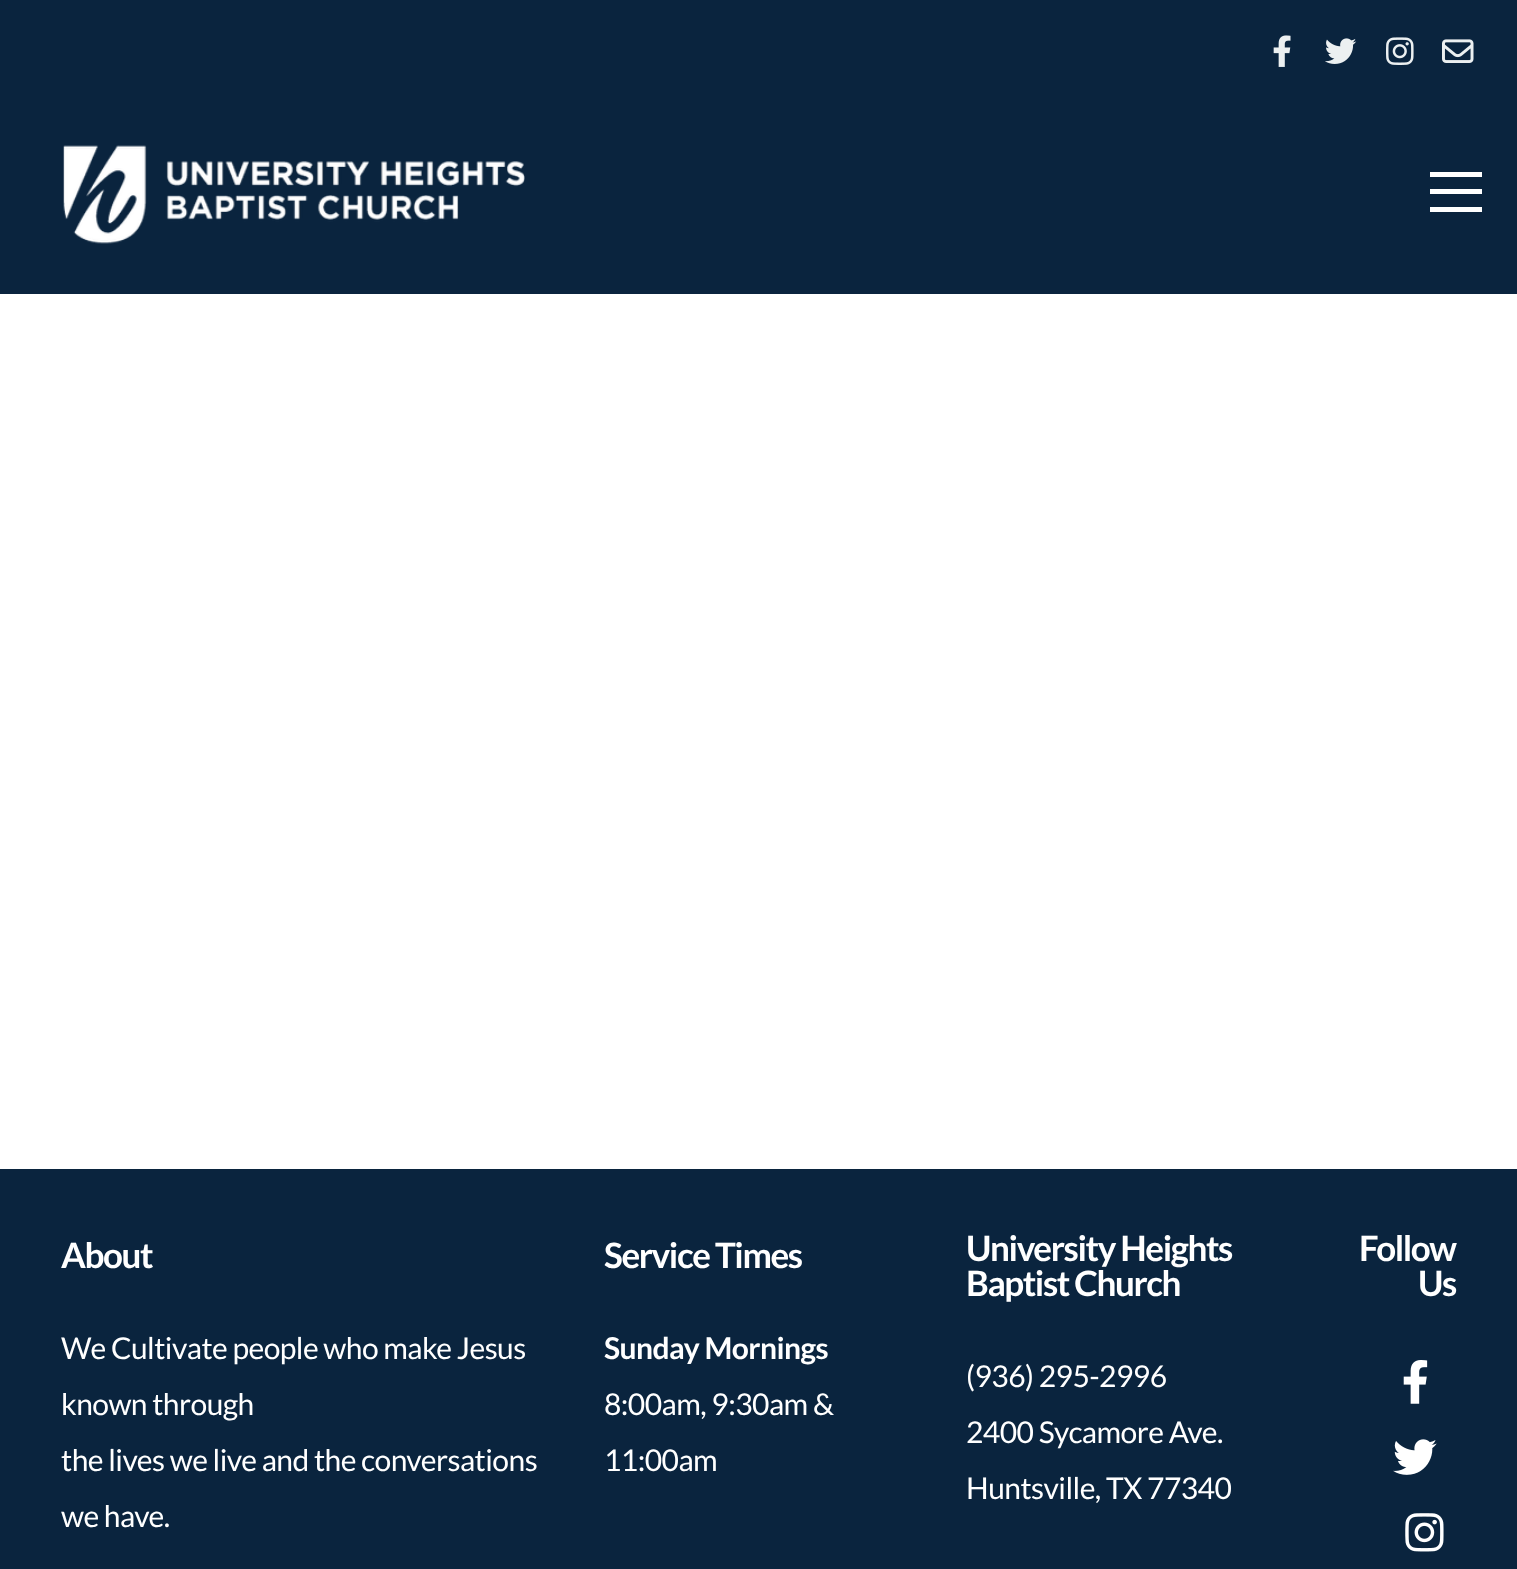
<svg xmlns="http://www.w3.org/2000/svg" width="1517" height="1569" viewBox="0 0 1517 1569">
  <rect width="100%" height="100%" fill="rgb(255,255,255)"/>
  <rect x="0" y="0" width="1517" height="294" fill="rgb(10,36,62)"/>
  <image x="1273" y="35" width="18" height="32" href="pic1.png"/>
  <image x="1325" y="38" width="32" height="26" href="pic2.png"/>
  <image x="1386" y="37" width="28" height="28" href="pic3.png"/>
  <image x="1442" y="39" width="32" height="24" href="pic4.png"/>
  <image x="63" y="145" width="462" height="99" href="pic5.png"/>
  <rect x="1430" y="172" width="52" height="5" fill="rgb(255,255,255)"/>
  <rect x="1430" y="189" width="52" height="5" fill="rgb(255,255,255)"/>
  <rect x="1430" y="207" width="52" height="5" fill="rgb(255,255,255)"/>
  <rect x="0" y="1169" width="1517" height="400" fill="rgb(10,36,62)"/>
  <text x="61" y="1268" font-family="Lato" font-size="35" font-weight="bold" letter-spacing="-1.4" fill="rgb(255,255,255)">About</text>
  <g font-family="Lato" font-size="30" letter-spacing="-0.55" fill="rgb(255,255,255)">
    <text>
      <tspan x="61" y="1359">We Cultivate people who make Jesus</tspan>
      <tspan x="61" y="1415">known through</tspan>
      <tspan x="61" y="1471">the lives we live and the conversations</tspan>
      <tspan x="61" y="1527">we have.</tspan>
    </text>
  </g>
  <text x="604" y="1268" font-family="Lato" font-size="35" font-weight="bold" letter-spacing="-1.4" fill="rgb(255,255,255)">Service Times</text>
  <text x="604" y="1359" font-family="Lato" font-size="30" font-weight="bold" letter-spacing="-0.55" fill="rgb(255,255,255)">Sunday Mornings</text>
  <g font-family="Lato" font-size="30" letter-spacing="-0.55" fill="rgb(255,255,255)">
    <text>
      <tspan x="604" y="1415">8:00am, 9:30am &amp;</tspan>
      <tspan x="604" y="1471">11:00am</tspan>
    </text>
  </g>
  <g font-family="Lato" font-size="35" font-weight="bold" letter-spacing="-1.4" fill="rgb(255,255,255)">
    <text>
      <tspan x="966" y="1261">University Heights</tspan>
      <tspan x="966" y="1296">Baptist Church</tspan>
    </text>
  </g>
  <g font-family="Lato" font-size="30" letter-spacing="-0.55" fill="rgb(255,255,255)">
    <text>
      <tspan x="966" y="1387">(936) 295-2996</tspan>
      <tspan x="966" y="1443">2400 Sycamore Ave.</tspan>
      <tspan x="966" y="1499">Huntsville, TX 77340</tspan>
    </text>
  </g>
  <g font-family="Lato" font-size="35" font-weight="bold" letter-spacing="-1.4" fill="rgb(255,255,255)">
    <text x="1359" y="1261">Follow</text>
    <text x="1418" y="1296">Us</text>
  </g>
  <image x="1403" y="1360" width="25" height="44" href="pic6.png"/>
  <image x="1393" y="1439" width="44" height="36" href="pic7.png"/>
  <image x="1405" y="1513" width="39" height="39" href="pic8.png"/>
</svg>
